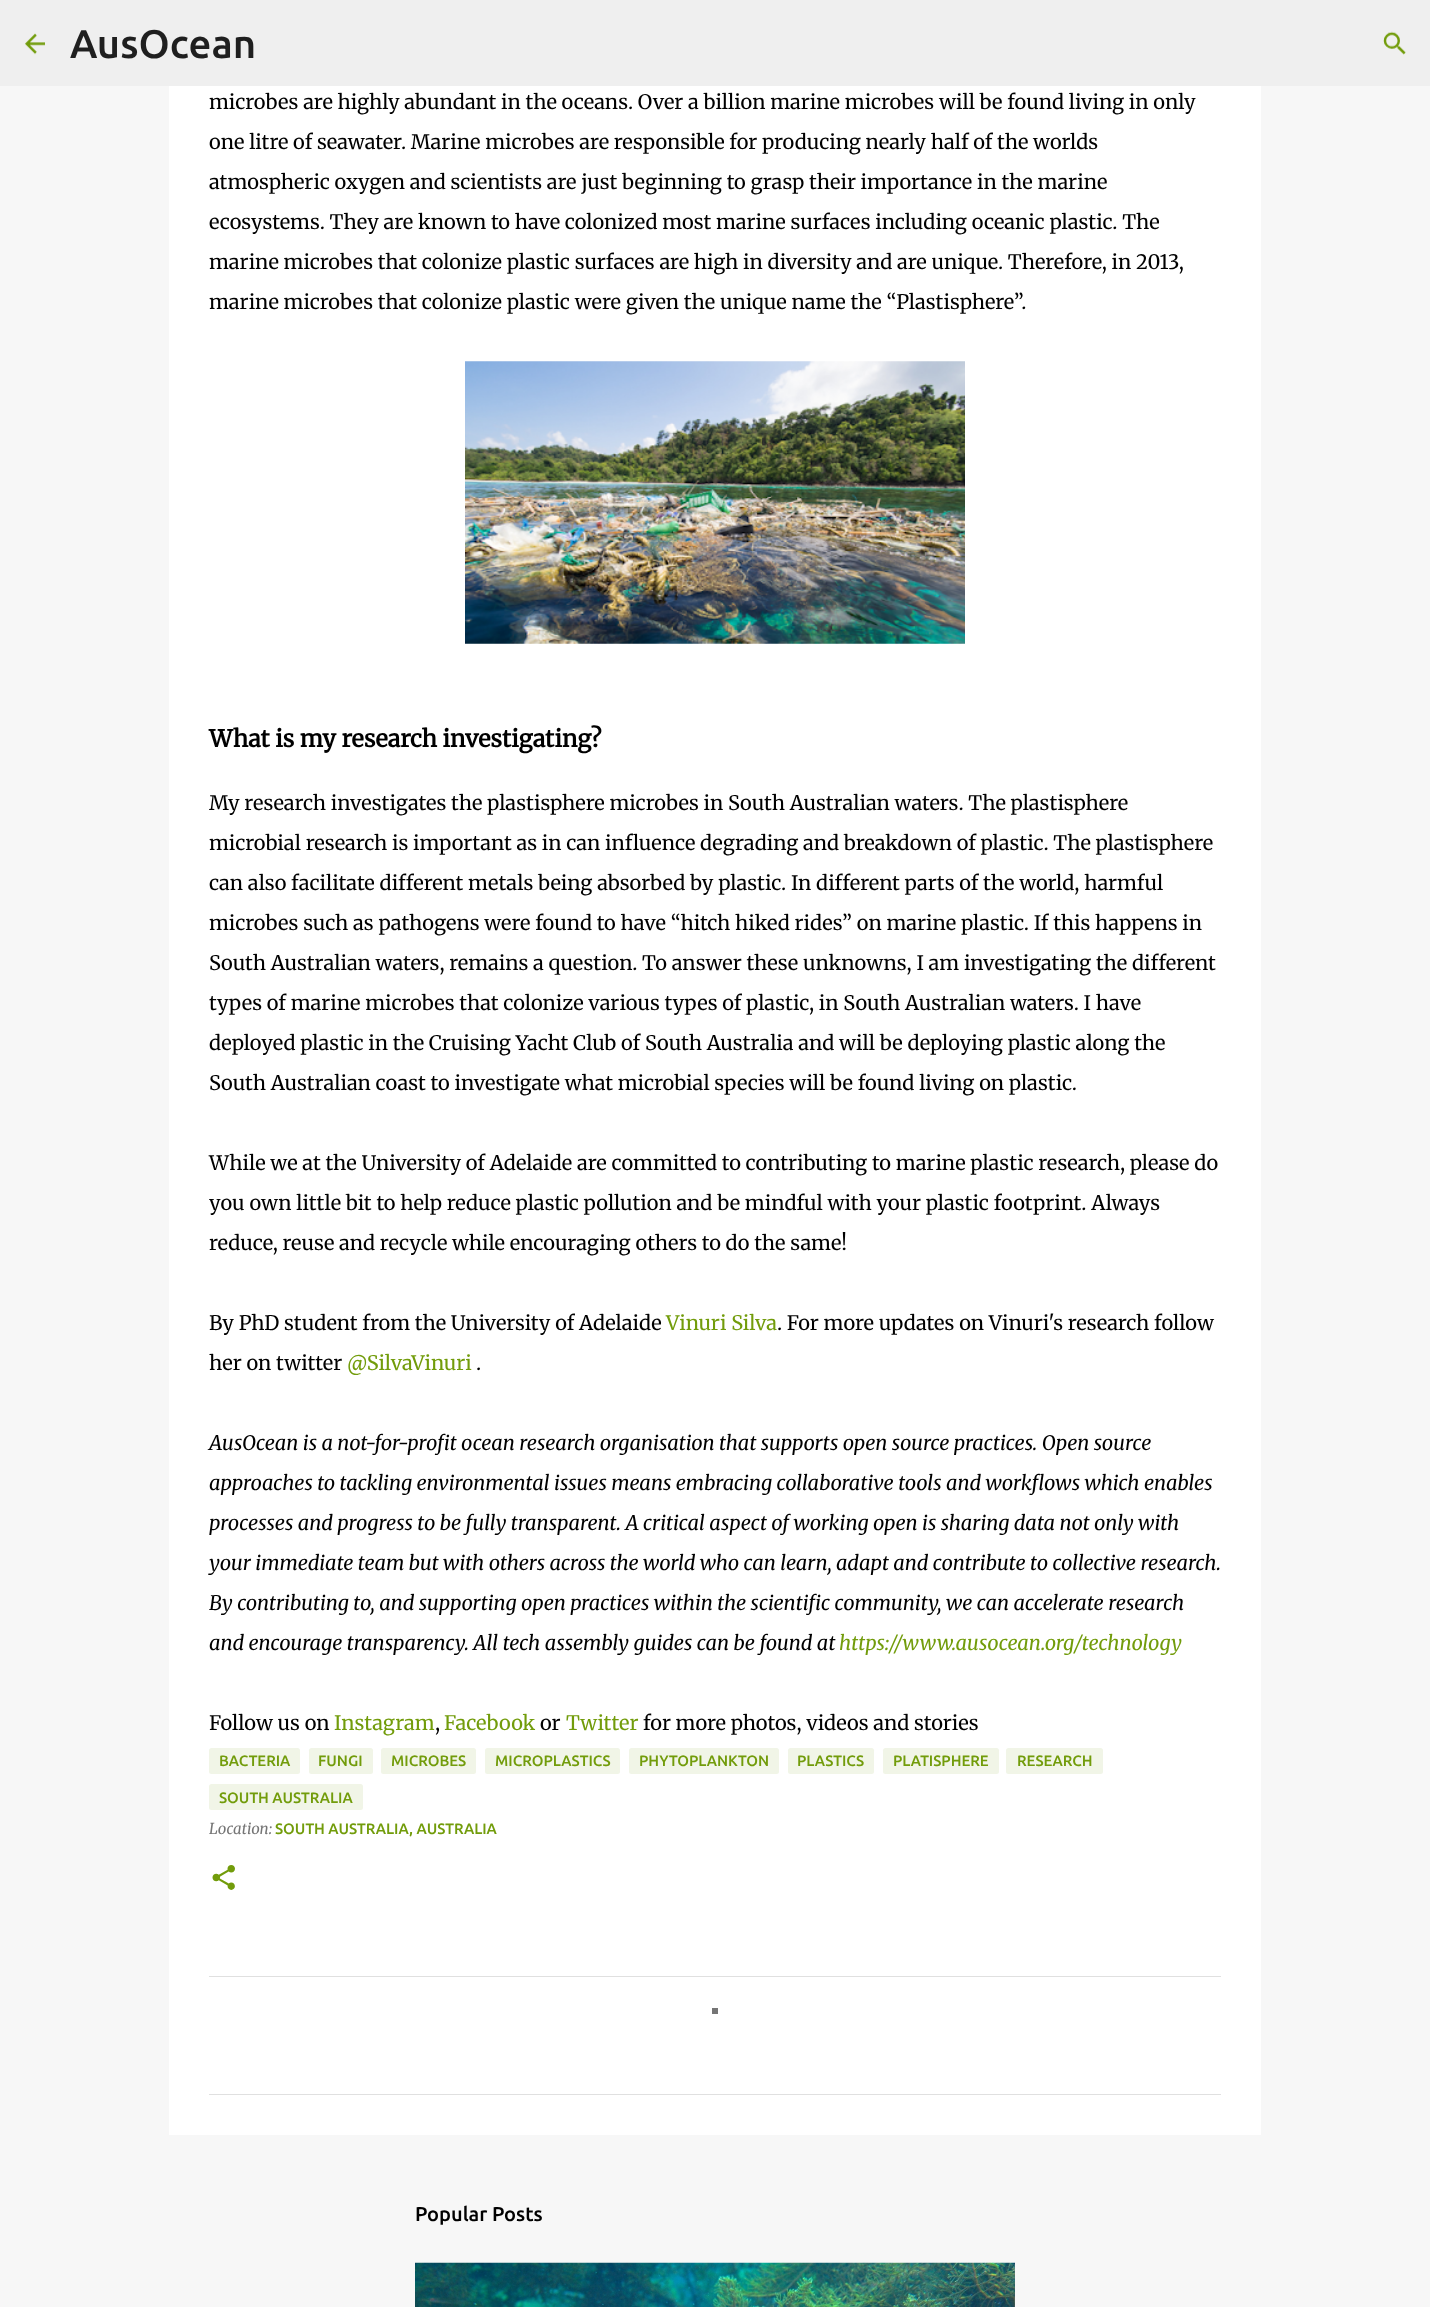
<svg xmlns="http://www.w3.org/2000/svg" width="1430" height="2307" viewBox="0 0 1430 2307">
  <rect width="100%" height="100%" fill="rgb(247,247,247)"/>
  <rect x="0" y="0" width="1430" height="86" fill="rgb(239,239,239)"/>
  <image x="25" y="33" width="20" height="22" href="pic1.png"/>
  <text x="70" y="58" font-family="Ubuntu" font-size="40" font-weight="500" fill="rgb(31,31,31)">AusOcean</text>
  <image x="1383" y="31" width="23" height="24" href="pic2.png"/>
  <rect x="169" y="86" width="1092" height="2049" fill="rgb(255,255,255)"/>
  <rect x="209" y="1976" width="1012" height="1" fill="rgb(224,224,224)"/>
  <rect x="209" y="2094" width="1012" height="1" fill="rgb(224,224,224)"/>
  <g font-family="Merriweather" font-size="20" font-weight="300" fill="rgb(0,0,0)">
    <text x="209" y="109">microbes are highly abundant in the oceans. Over a billion marine microbes will be found living in only</text>
    <text x="209" y="149">one litre of seawater. Marine microbes are responsible for producing nearly half of the worlds</text>
    <text x="209" y="189">atmospheric oxygen and scientists are just beginning to grasp their importance in the marine</text>
    <text x="209" y="229">ecosystems. They are known to have colonized most marine surfaces including oceanic plastic. The</text>
    <text x="209" y="269">marine microbes that colonize plastic surfaces are high in diversity and are unique. Therefore, in 2013,</text>
    <text x="209" y="309">marine microbes that colonize plastic were given the unique name the “Plastisphere”.</text>
  </g>
  <image x="465" y="361" width="500" height="283" href="pic3.png"/>
  <text x="209" y="747" font-family="Merriweather" font-size="23.4" font-weight="bold" fill="rgb(0,0,0)">What is my research investigating?</text>
  <g font-family="Merriweather" font-size="20" font-weight="300" fill="rgb(0,0,0)">
    <text x="209" y="810">My research investigates the plastisphere microbes in South Australian waters. The plastisphere</text>
    <text x="209" y="850">microbial research is important as in can influence degrading and breakdown of plastic. The plastisphere</text>
    <text x="209" y="890">can also facilitate different metals being absorbed by plastic. In different parts of the world, harmful</text>
    <text x="209" y="930">microbes such as pathogens were found to have “hitch hiked rides” on marine plastic. If this happens in</text>
    <text x="209" y="970">South Australian waters, remains a question. To answer these unknowns, I am investigating the different</text>
    <text x="209" y="1010">types of marine microbes that colonize various types of plastic, in South Australian waters. I have</text>
    <text x="209" y="1050">deployed plastic in the Cruising Yacht Club of South Australia and will be deploying plastic along the</text>
    <text x="209" y="1090">South Australian coast to investigate what microbial species will be found living on plastic.</text>
    <text x="209" y="1170">While we at the University of Adelaide are committed to contributing to marine plastic research, please do</text>
    <text x="209" y="1210">you own little bit to help reduce plastic pollution and be mindful with your plastic footprint. Always</text>
    <text x="209" y="1250">reduce, reuse and recycle while encouraging others to do the same!</text>
    <text x="209" y="1330">By PhD student from the University of Adelaide</text>
  </g>
  <text x="666" y="1330" font-family="Merriweather" font-size="20" font-weight="300" fill="rgb(114,156,11)">Vinuri Silva</text>
  <g font-family="Merriweather" font-size="20" font-weight="300" fill="rgb(0,0,0)">
    <text x="777" y="1330">. For more updates on Vinuri's research follow</text>
    <text x="209" y="1370">her on twitter</text>
  </g>
  <text x="347" y="1370" font-family="Merriweather" font-size="20" font-weight="300" fill="rgb(114,156,11)">@SilvaVinuri</text>
  <text x="476" y="1370" font-family="Merriweather" font-size="20" font-weight="300" fill="rgb(0,0,0)">.</text>
  <g font-family="Merriweather" font-size="20" font-style="italic" fill="rgb(0,0,0)">
    <text x="209" y="1450">AusOcean is a not-for-profit ocean research organisation that supports open source practices. Open source</text>
    <text x="209" y="1490">approaches to tackling environmental issues means embracing collaborative tools and workflows which enables</text>
    <text x="209" y="1530">processes and progress to be fully transparent. A critical aspect of working open is sharing data not only with</text>
    <text x="209" y="1570">your immediate team but with others across the world who can learn, adapt and contribute to collective research.</text>
    <text x="209" y="1610">By contributing to, and supporting open practices within the scientific community, we can accelerate research</text>
    <text x="209" y="1650">and encourage transparency. All tech assembly guides can be found at</text>
  </g>
  <text x="839" y="1650" font-family="Merriweather" font-size="20" font-style="italic" fill="rgb(114,156,11)">https://www.ausocean.org/technology</text>
  <text x="209" y="1730" font-family="Merriweather" font-size="20" font-weight="300" fill="rgb(0,0,0)">Follow us on</text>
  <text x="334" y="1730" font-family="Merriweather" font-size="20" font-weight="300" fill="rgb(114,156,11)">Instagram</text>
  <text x="435" y="1730" font-family="Merriweather" font-size="20" font-weight="300" fill="rgb(0,0,0)">,</text>
  <text x="444" y="1730" font-family="Merriweather" font-size="20" font-weight="300" fill="rgb(114,156,11)">Facebook</text>
  <text x="540" y="1730" font-family="Merriweather" font-size="20" font-weight="300" fill="rgb(0,0,0)">or</text>
  <text x="566" y="1730" font-family="Merriweather" font-size="20" font-weight="300" fill="rgb(114,156,11)">Twitter</text>
  <text x="643" y="1730" font-family="Merriweather" font-size="20" font-weight="300" fill="rgb(0,0,0)">for more photos, videos and stories</text>
  <rect x="209" y="1748" width="91" height="26" rx="2.5" fill="rgb(241,245,231)"/>
  <text x="219" y="1766" font-family="Ubuntu" font-size="15" font-weight="500" fill="rgb(114,156,11)">BACTERIA</text>
  <rect x="309" y="1748" width="64" height="26" rx="2.5" fill="rgb(241,245,231)"/>
  <text x="318" y="1766" font-family="Ubuntu" font-size="15" font-weight="500" fill="rgb(114,156,11)">FUNGI</text>
  <rect x="381" y="1748" width="95" height="26" rx="2.5" fill="rgb(241,245,231)"/>
  <text x="391" y="1766" font-family="Ubuntu" font-size="15" font-weight="500" fill="rgb(114,156,11)">MICROBES</text>
  <rect x="485" y="1748" width="135" height="26" rx="2.5" fill="rgb(241,245,231)"/>
  <text x="495" y="1766" font-family="Ubuntu" font-size="15" font-weight="500" fill="rgb(114,156,11)">MICROPLASTICS</text>
  <rect x="629" y="1748" width="150" height="26" rx="2.5" fill="rgb(241,245,231)"/>
  <text x="639" y="1766" font-family="Ubuntu" font-size="15" font-weight="500" fill="rgb(114,156,11)">PHYTOPLANKTON</text>
  <rect x="788" y="1748" width="86" height="26" rx="2.5" fill="rgb(241,245,231)"/>
  <text x="797" y="1766" font-family="Ubuntu" font-size="15" font-weight="500" fill="rgb(114,156,11)">PLASTICS</text>
  <rect x="883" y="1748" width="116" height="26" rx="2.5" fill="rgb(241,245,231)"/>
  <text x="893" y="1766" font-family="Ubuntu" font-size="15" font-weight="500" fill="rgb(114,156,11)">PLATISPHERE</text>
  <rect x="1006" y="1748" width="97" height="26" rx="2.5" fill="rgb(241,245,231)"/>
  <text x="1017" y="1766" font-family="Ubuntu" font-size="15" font-weight="500" fill="rgb(114,156,11)">RESEARCH</text>
  <rect x="209" y="1784" width="154" height="26" rx="2.5" fill="rgb(241,245,231)"/>
  <text x="219" y="1803" font-family="Ubuntu" font-size="15" font-weight="500" fill="rgb(114,156,11)">SOUTH AUSTRALIA</text>
  <text x="209" y="1834" font-family="Merriweather" font-size="15" font-style="italic" fill="rgb(117,117,117)">Location:</text>
  <text x="275" y="1834" font-family="Ubuntu" font-size="15" font-weight="500" fill="rgb(114,156,11)">SOUTH AUSTRALIA, AUSTRALIA</text>
  <image x="212" y="1865" width="23" height="25" href="pic4.png"/>
  <text x="415" y="2221" font-family="Ubuntu" font-size="20" font-weight="500" fill="rgb(0,0,0)">Popular Posts</text>
  <image x="415" y="2262" width="600" height="45" href="pic5.png"/>
  <rect x="712" y="2008" width="6" height="6" fill="rgb(117,117,117)"/>
</svg>
